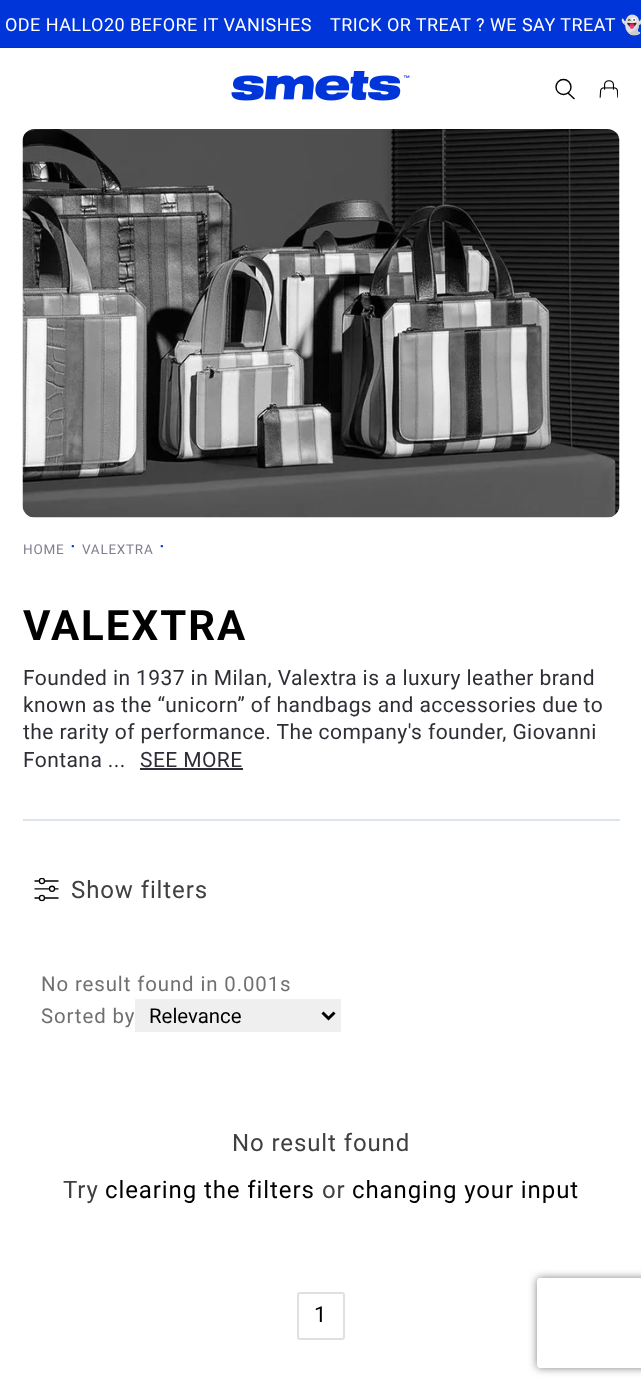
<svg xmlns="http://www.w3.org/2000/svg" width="641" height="1388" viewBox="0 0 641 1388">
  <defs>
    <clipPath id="clip1"><path d="M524 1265H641V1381H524ZM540 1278H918C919.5 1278 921 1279.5 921 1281V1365C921 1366.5 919.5 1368 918 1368H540C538.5 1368 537 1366.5 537 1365V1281C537 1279.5 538.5 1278 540 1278Z" clip-rule="evenodd"/></clipPath>
  </defs>
  <rect width="100%" height="100%" fill="rgb(255,255,255)"/>
  <rect x="0" y="0" width="641" height="47" fill="rgb(0,54,217)"/>
  <rect x="0" y="47" width="641" height="1" fill="rgb(0,50,200)"/>
  <g font-family="Roboto" font-size="18" letter-spacing="0.45" fill="rgb(255,255,255)">
    <text x="5" y="31">ODE HALLO20 BEFORE IT VANISHES</text>
    <text x="330" y="31">TRICK OR TREAT ? WE SAY TREAT</text>
  </g>
  <text x="621" y="31" font-family="Noto Color Emoji" font-size="18" letter-spacing="0.45" fill="rgb(255,255,255)">👻</text>
  <image x="231" y="71" width="179" height="30" href="pic1.png"/>
  <circle cx="563.5" cy="87" r="7.5" fill="none" stroke="rgb(0,0,0)" stroke-width="1.4"/>
  <path d="M568 93L574.5 99" fill="none" stroke="rgb(0,0,0)" stroke-width="1.4"/>
  <image x="599" y="80" width="19" height="18" href="pic2.png"/>
  <image x="22" y="129" width="598" height="389" href="pic3.png"/>
  <text x="23" y="554" font-family="Roboto" font-size="13.5" letter-spacing="0.75" fill="rgb(126,127,143)">HOME</text>
  <text x="70" y="554" font-family="Roboto" font-size="22" letter-spacing="0.9" fill="rgb(0,54,217)">·</text>
  <text x="82" y="554" font-family="Roboto" font-size="13.5" letter-spacing="0.75" fill="rgb(126,127,143)">VALEXTRA</text>
  <text x="159" y="554" font-family="Roboto" font-size="22" letter-spacing="0.9" fill="rgb(0,54,217)">·</text>
  <rect x="23" y="819" width="597" height="2" fill="rgb(220,229,237)"/>
  <text x="23" y="640" font-family="Roboto" font-size="42" font-weight="bold" letter-spacing="2" fill="rgb(0,0,0)">VALEXTRA</text>
  <g font-family="Roboto" font-size="21" letter-spacing="0.42" fill="rgb(46,46,54)">
    <text>
      <tspan x="23" y="685">Founded in 1937 in Milan, Valextra is a luxury leather brand</tspan>
      <tspan x="23" y="712">known as the “unicorn” of handbags and accessories due to</tspan>
      <tspan x="23" y="739">the rarity of performance. The company's founder, Giovanni</tspan>
      <tspan x="23" y="767">Fontana ...</tspan>
    </text>
    <text x="140" y="767">SEE MORE</text>
  </g>
  <rect x="140" y="768" width="103" height="2" fill="rgb(46,46,54)"/>
  <image x="34" y="878" width="25" height="24" href="pic4.png"/>
  <text x="71" y="898" font-family="Roboto" font-size="24" letter-spacing="0.9" fill="rgb(64,64,64)">Show filters</text>
  <g font-family="Roboto" font-size="20.4" letter-spacing="0.9" fill="rgb(112,112,112)">
    <text>
      <tspan x="41" y="991">No result found in 0.001s</tspan>
      <tspan x="41" y="1023">Sorted by</tspan>
    </text>
  </g>
  <rect x="135" y="999" width="206" height="33" fill="rgb(239,239,239)"/>
  <path d="M322.5 1012.5L328.5 1018.5L334.5 1012.5" fill="none" stroke="rgb(0,0,0)" stroke-width="3"/>
  <text x="149" y="1023" font-family="Roboto" font-size="20.4" fill="rgb(0,0,0)">Relevance</text>
  <g font-family="Roboto" font-size="24" letter-spacing="0.9" fill="rgb(64,64,64)">
    <text x="232" y="1151">No result found</text>
    <text x="63" y="1198">Try</text>
  </g>
  <text x="105" y="1198" font-family="Roboto" font-size="24" letter-spacing="0.9" fill="rgb(0,0,0)">clearing the filters</text>
  <text x="322" y="1198" font-family="Roboto" font-size="24" letter-spacing="0.9" fill="rgb(64,64,64)">or</text>
  <text x="352" y="1198" font-family="Roboto" font-size="24" letter-spacing="0.9" fill="rgb(0,0,0)">changing your input</text>
  <rect x="298" y="1293" width="46" height="46" rx="2" fill="none" stroke="rgb(224,224,224)" stroke-width="2"/>
  <text x="314" y="1322" font-family="Roboto" font-size="22" letter-spacing="0.9" fill="rgb(0,0,0)">1</text>
  <g clip-path="url(#clip1)">
    <rect x="537" y="1278" width="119" height="90" rx="3" fill="rgb(128,128,128)" filter="blur(4px)"/>
  </g>
</svg>
